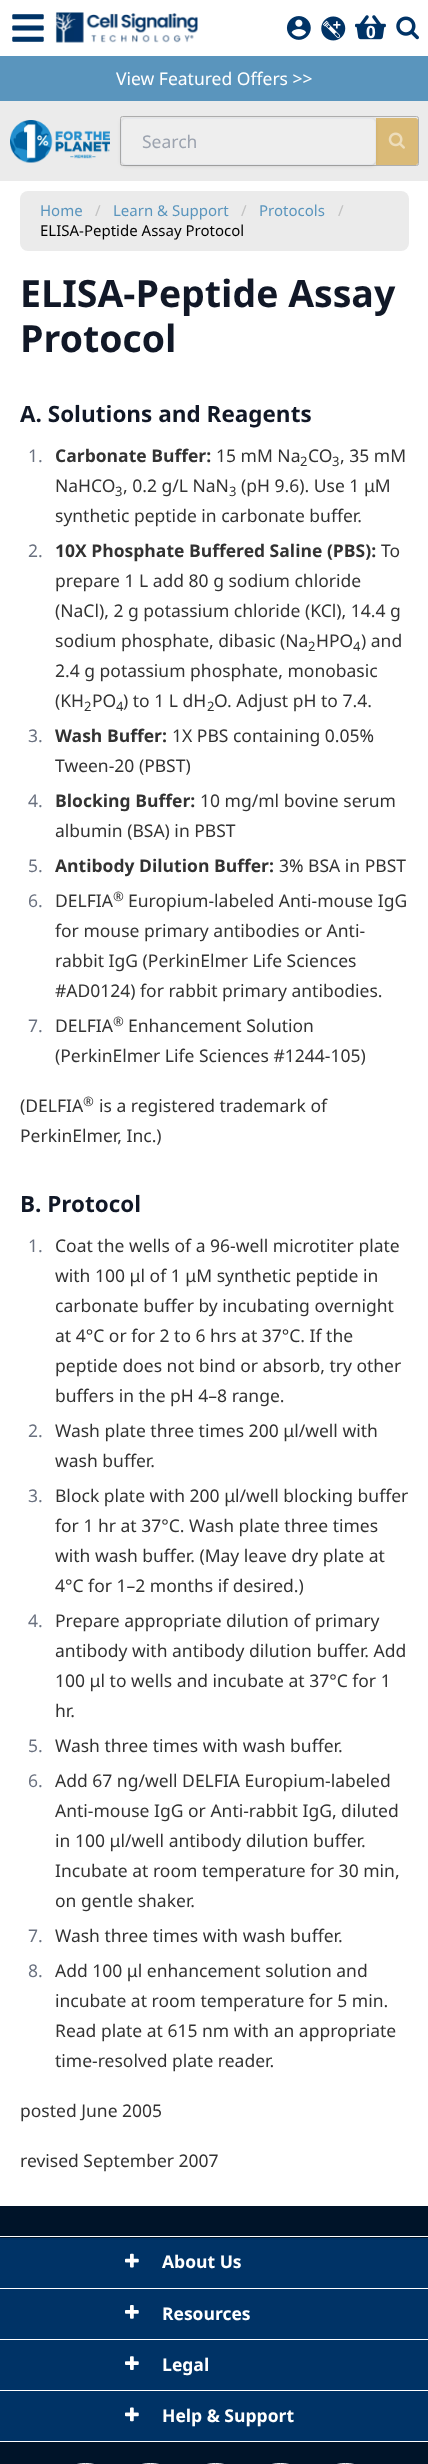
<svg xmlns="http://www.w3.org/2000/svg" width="428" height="2464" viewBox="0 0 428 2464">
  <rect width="100%" height="100%" fill="rgb(255,255,255)"/>
  <image x="12" y="14" width="32" height="28" href="pic1.png"/>
  <image x="55" y="12" width="143" height="31" href="pic2.png"/>
  <image x="286" y="16" width="25" height="24" href="pic3.png"/>
  <image x="321" y="16" width="25" height="25" href="pic4.png"/>
  <image x="355" y="15" width="31" height="25" href="pic5.png"/>
  <text x="366" y="38" font-family="Noto Sans" font-size="17" font-weight="bold" fill="rgb(255,255,255)">0</text>
  <image x="396" y="16" width="23" height="24" href="pic6.png"/>
  <rect x="0" y="56" width="428" height="45" fill="rgb(90,149,189)"/>
  <text x="116" y="85" font-family="Noto Sans" font-size="17.5" fill="rgb(255,255,255)">View Featured Offers &gt;&gt;</text>
  <rect x="0" y="101" width="428" height="80" fill="rgb(235,235,235)"/>
  <image x="10" y="120" width="100" height="43" href="pic7.png"/>
  <rect x="120.5" y="116.5" width="298" height="49" rx="2" fill="none" stroke="rgb(175,175,175)"/>
  <rect x="123" y="120" width="252" height="45" rx="4" fill="rgba(0,0,0,0.1)" filter="blur(1px)"/>
  <rect x="121" y="119" width="255" height="47" rx="5" fill="rgba(0,0,0,0.1)" filter="blur(2px)"/>
  <rect x="121.5" y="118.5" width="254" height="46" rx="4.5" fill="rgb(238,238,238)" stroke="rgb(229,231,235)"/>
  <text x="142" y="148" font-family="Noto Sans" font-size="17.5" fill="rgb(156,163,175)">Search</text>
  <path d="M376 118H415.5C417 118 418 119 418 120.5V162.5C418 164 417 165 415.5 165H376Z" fill="rgba(202,138,4,0.5)"/>
  <image x="388" y="132" width="17" height="17" href="pic8.png"/>
  <rect x="20" y="191" width="389" height="60" rx="8" fill="rgb(235,235,235)"/>
  <text x="40" y="216" font-family="Noto Sans" font-size="15" fill="rgb(90,149,189)">Home</text>
  <text x="95" y="216" font-family="Noto Sans" font-size="15" fill="rgb(194,194,194)">/</text>
  <text x="113" y="216" font-family="Noto Sans" font-size="15" fill="rgb(90,149,189)">Learn &amp; Support</text>
  <text x="241" y="216" font-family="Noto Sans" font-size="15" fill="rgb(194,194,194)">/</text>
  <text x="259" y="216" font-family="Noto Sans" font-size="15" fill="rgb(90,149,189)">Protocols</text>
  <text x="338" y="216" font-family="Noto Sans" font-size="15" fill="rgb(194,194,194)">/</text>
  <text x="40" y="236" font-family="Noto Sans" font-size="15" fill="rgb(0,0,0)">ELISA-Peptide Assay Protocol</text>
  <g font-family="Noto Sans" font-size="37.5" font-weight="bold" fill="rgb(17,24,39)">
    <text>
      <tspan x="20" y="307">ELISA-Peptide Assay</tspan>
      <tspan x="20" y="352">Protocol</tspan>
    </text>
  </g>
  <text x="20" y="422" font-family="Noto Sans" font-size="22.5" font-weight="bold" fill="rgb(17,24,39)">A. Solutions and Reagents</text>
  <text x="28" y="462" font-family="Noto Sans" font-size="17.5" fill="rgb(107,114,128)">1.</text>
  <text x="55" y="462" font-family="Noto Sans" font-size="17.5" font-weight="bold" fill="rgb(51,51,51)">Carbonate Buffer:</text>
  <text x="216" y="462" font-family="Noto Sans" font-size="17.5" fill="rgb(51,51,51)">15 mM Na</text>
  <text x="300" y="466" font-family="Noto Sans" font-size="13" fill="rgb(51,51,51)">2</text>
  <text x="308" y="462" font-family="Noto Sans" font-size="17.5" fill="rgb(51,51,51)">CO</text>
  <text x="332" y="466" font-family="Noto Sans" font-size="13" fill="rgb(51,51,51)">3</text>
  <g font-family="Noto Sans" font-size="17.5" fill="rgb(51,51,51)">
    <text x="340" y="462">, 35 mM</text>
    <text x="55" y="492">NaHCO</text>
  </g>
  <text x="115" y="496" font-family="Noto Sans" font-size="13" fill="rgb(51,51,51)">3</text>
  <text x="123" y="492" font-family="Noto Sans" font-size="17.5" fill="rgb(51,51,51)">, 0.2 g/L NaN</text>
  <text x="229" y="496" font-family="Noto Sans" font-size="13" fill="rgb(51,51,51)">3</text>
  <g font-family="Noto Sans" font-size="17.5" fill="rgb(51,51,51)">
    <text x="241" y="492">(pH 9.6). Use 1 μM</text>
    <text x="55" y="522">synthetic peptide in carbonate buffer.</text>
  </g>
  <text x="28" y="557" font-family="Noto Sans" font-size="17.5" fill="rgb(107,114,128)">2.</text>
  <text x="55" y="557" font-family="Noto Sans" font-size="17.5" font-weight="bold" fill="rgb(51,51,51)">10X Phosphate Buffered Saline (PBS):</text>
  <g font-family="Noto Sans" font-size="17.5" fill="rgb(51,51,51)">
    <text x="381" y="557">To</text>
    <text>
      <tspan x="55" y="587">prepare 1 L add 80 g sodium chloride</tspan>
      <tspan x="55" y="617">(NaCl), 2 g potassium chloride (KCl), 14.4 g</tspan>
      <tspan x="55" y="647">sodium phosphate, dibasic (Na</tspan>
    </text>
  </g>
  <text x="308" y="651" font-family="Noto Sans" font-size="13" fill="rgb(51,51,51)">2</text>
  <text x="316" y="647" font-family="Noto Sans" font-size="17.5" fill="rgb(51,51,51)">HPO</text>
  <text x="353" y="651" font-family="Noto Sans" font-size="13" fill="rgb(51,51,51)">4</text>
  <g font-family="Noto Sans" font-size="17.5" fill="rgb(51,51,51)">
    <text x="361" y="647">) and</text>
    <text>
      <tspan x="55" y="677">2.4 g potassium phosphate, monobasic</tspan>
      <tspan x="55" y="707">(KH</tspan>
    </text>
  </g>
  <text x="84" y="711" font-family="Noto Sans" font-size="13" fill="rgb(51,51,51)">2</text>
  <g font-family="Noto Sans" font-size="17.5" fill="rgb(51,51,51)">
    <text x="92" y="707">PO</text>
    <text x="123" y="707">) to 1 L dH</text>
  </g>
  <g font-family="Noto Sans" font-size="13" fill="rgb(51,51,51)">
    <text x="116" y="711">4</text>
    <text x="207" y="711">2</text>
  </g>
  <text x="214" y="707" font-family="Noto Sans" font-size="17.5" fill="rgb(51,51,51)">O. Adjust pH to 7.4.</text>
  <text x="28" y="742" font-family="Noto Sans" font-size="17.5" fill="rgb(107,114,128)">3.</text>
  <text x="55" y="742" font-family="Noto Sans" font-size="17.5" font-weight="bold" fill="rgb(51,51,51)">Wash Buffer:</text>
  <g font-family="Noto Sans" font-size="17.5" fill="rgb(51,51,51)">
    <text x="172" y="742">1X PBS containing 0.05%</text>
    <text x="55" y="772">Tween-20 (PBST)</text>
  </g>
  <text x="28" y="807" font-family="Noto Sans" font-size="17.5" fill="rgb(107,114,128)">4.</text>
  <text x="55" y="807" font-family="Noto Sans" font-size="17.5" font-weight="bold" fill="rgb(51,51,51)">Blocking Buffer:</text>
  <g font-family="Noto Sans" font-size="17.5" fill="rgb(51,51,51)">
    <text x="200" y="807">10 mg/ml bovine serum</text>
    <text x="55" y="837">albumin (BSA) in PBST</text>
  </g>
  <text x="28" y="872" font-family="Noto Sans" font-size="17.5" fill="rgb(107,114,128)">5.</text>
  <text x="55" y="872" font-family="Noto Sans" font-size="17.5" font-weight="bold" fill="rgb(51,51,51)">Antibody Dilution Buffer:</text>
  <text x="279" y="872" font-family="Noto Sans" font-size="17.5" fill="rgb(51,51,51)">3% BSA in PBST</text>
  <text x="28" y="907" font-family="Noto Sans" font-size="17.5" fill="rgb(107,114,128)">6.</text>
  <text x="55" y="907" font-family="Noto Sans" font-size="17.5" fill="rgb(51,51,51)">DELFIA</text>
  <text x="113" y="901" font-family="Noto Sans" font-size="13" fill="rgb(51,51,51)">®</text>
  <g font-family="Noto Sans" font-size="17.5" fill="rgb(51,51,51)">
    <text x="128" y="907">Europium-labeled Anti-mouse IgG</text>
    <text>
      <tspan x="55" y="937">for mouse primary antibodies or Anti-</tspan>
      <tspan x="55" y="967">rabbit IgG (PerkinElmer Life Sciences</tspan>
      <tspan x="55" y="997">#AD0124) for rabbit primary antibodies.</tspan>
    </text>
  </g>
  <text x="28" y="1032" font-family="Noto Sans" font-size="17.5" fill="rgb(107,114,128)">7.</text>
  <text x="55" y="1032" font-family="Noto Sans" font-size="17.5" fill="rgb(51,51,51)">DELFIA</text>
  <text x="113" y="1026" font-family="Noto Sans" font-size="13" fill="rgb(51,51,51)">®</text>
  <g font-family="Noto Sans" font-size="17.5" fill="rgb(51,51,51)">
    <text x="128" y="1032">Enhancement Solution</text>
    <text x="55" y="1062">(PerkinElmer Life Sciences #1244-105)</text>
    <text x="20" y="1112">(DELFIA</text>
  </g>
  <text x="83" y="1106" font-family="Noto Sans" font-size="13" fill="rgb(51,51,51)">®</text>
  <g font-family="Noto Sans" font-size="17.5" fill="rgb(51,51,51)">
    <text x="99" y="1112">is a registered trademark of</text>
    <text x="20" y="1142">PerkinElmer, Inc.)</text>
  </g>
  <text x="20" y="1212" font-family="Noto Sans" font-size="22.5" font-weight="bold" fill="rgb(17,24,39)">B. Protocol</text>
  <text x="28" y="1252" font-family="Noto Sans" font-size="17.5" fill="rgb(107,114,128)">1.</text>
  <g font-family="Noto Sans" font-size="17.5" fill="rgb(51,51,51)">
    <text>
      <tspan x="55" y="1252">Coat the wells of a 96-well microtiter plate</tspan>
      <tspan x="55" y="1282">with 100 μl of 1 μM synthetic peptide in</tspan>
      <tspan x="55" y="1312">carbonate buffer by incubating overnight</tspan>
      <tspan x="55" y="1342">at 4°C or for 2 to 6 hrs at 37°C. If the</tspan>
      <tspan x="55" y="1372">peptide does not bind or absorb, try other</tspan>
      <tspan x="55" y="1402">buffers in the pH 4–8 range.</tspan>
    </text>
  </g>
  <text x="28" y="1437" font-family="Noto Sans" font-size="17.5" fill="rgb(107,114,128)">2.</text>
  <g font-family="Noto Sans" font-size="17.5" fill="rgb(51,51,51)">
    <text>
      <tspan x="55" y="1437">Wash plate three times 200 μl/well with</tspan>
      <tspan x="55" y="1467">wash buffer.</tspan>
    </text>
  </g>
  <text x="28" y="1502" font-family="Noto Sans" font-size="17.5" fill="rgb(107,114,128)">3.</text>
  <g font-family="Noto Sans" font-size="17.5" fill="rgb(51,51,51)">
    <text>
      <tspan x="55" y="1502">Block plate with 200 μl/well blocking buffer</tspan>
      <tspan x="55" y="1532">for 1 hr at 37°C. Wash plate three times</tspan>
      <tspan x="55" y="1562">with wash buffer. (May leave dry plate at</tspan>
      <tspan x="55" y="1592">4°C for 1–2 months if desired.)</tspan>
    </text>
  </g>
  <text x="28" y="1627" font-family="Noto Sans" font-size="17.5" fill="rgb(107,114,128)">4.</text>
  <g font-family="Noto Sans" font-size="17.5" fill="rgb(51,51,51)">
    <text>
      <tspan x="55" y="1627">Prepare appropriate dilution of primary</tspan>
      <tspan x="55" y="1657">antibody with antibody dilution buffer. Add</tspan>
      <tspan x="55" y="1687">100 μl to wells and incubate at 37°C for 1</tspan>
      <tspan x="55" y="1717">hr.</tspan>
    </text>
  </g>
  <text x="28" y="1752" font-family="Noto Sans" font-size="17.5" fill="rgb(107,114,128)">5.</text>
  <text x="55" y="1752" font-family="Noto Sans" font-size="17.5" fill="rgb(51,51,51)">Wash three times with wash buffer.</text>
  <text x="28" y="1787" font-family="Noto Sans" font-size="17.5" fill="rgb(107,114,128)">6.</text>
  <g font-family="Noto Sans" font-size="17.5" fill="rgb(51,51,51)">
    <text>
      <tspan x="55" y="1787">Add 67 ng/well DELFIA Europium-labeled</tspan>
      <tspan x="55" y="1817">Anti-mouse IgG or Anti-rabbit IgG, diluted</tspan>
      <tspan x="55" y="1847">in 100 μl/well antibody dilution buffer.</tspan>
      <tspan x="55" y="1877">Incubate at room temperature for 30 min,</tspan>
      <tspan x="55" y="1907">on gentle shaker.</tspan>
    </text>
  </g>
  <text x="28" y="1942" font-family="Noto Sans" font-size="17.5" fill="rgb(107,114,128)">7.</text>
  <text x="55" y="1942" font-family="Noto Sans" font-size="17.5" fill="rgb(51,51,51)">Wash three times with wash buffer.</text>
  <text x="28" y="1977" font-family="Noto Sans" font-size="17.5" fill="rgb(107,114,128)">8.</text>
  <g font-family="Noto Sans" font-size="17.5" fill="rgb(51,51,51)">
    <text>
      <tspan x="55" y="1977">Add 100 μl enhancement solution and</tspan>
      <tspan x="55" y="2007">incubate at room temperature for 5 min.</tspan>
      <tspan x="55" y="2037">Read plate at 615 nm with an appropriate</tspan>
      <tspan x="55" y="2067">time-resolved plate reader.</tspan>
    </text>
    <text x="20" y="2117">posted June 2005</text>
    <text x="20" y="2167">revised September 2007</text>
  </g>
  <rect x="0" y="2206" width="428" height="258" fill="rgb(0,20,41)"/>
  <rect x="0" y="2236" width="428" height="1" fill="rgb(255,255,255)"/>
  <rect x="0" y="2288" width="428" height="1" fill="rgb(255,255,255)"/>
  <rect x="0" y="2238" width="428" height="50" fill="rgb(0,51,102)"/>
  <image x="125" y="2253" width="14" height="15" href="pic9.png"/>
  <text x="162" y="2268" font-family="Noto Sans" font-size="17.5" font-weight="bold" fill="rgb(255,255,255)">About Us</text>
  <rect x="0" y="2339" width="428" height="1" fill="rgb(255,255,255)"/>
  <rect x="0" y="2289" width="428" height="50" fill="rgb(0,51,102)"/>
  <image x="125" y="2305" width="14" height="14" href="pic10.png"/>
  <text x="162" y="2320" font-family="Noto Sans" font-size="17.5" font-weight="bold" fill="rgb(255,255,255)">Resources</text>
  <rect x="0" y="2390" width="428" height="1" fill="rgb(255,255,255)"/>
  <rect x="0" y="2340" width="428" height="50" fill="rgb(0,51,102)"/>
  <image x="125" y="2356" width="14" height="14" href="pic11.png"/>
  <text x="162" y="2371" font-family="Noto Sans" font-size="17.5" font-weight="bold" fill="rgb(255,255,255)">Legal</text>
  <rect x="0" y="2441" width="428" height="1" fill="rgb(255,255,255)"/>
  <rect x="0" y="2391" width="428" height="50" fill="rgb(0,51,102)"/>
  <image x="125" y="2407" width="14" height="15" href="pic12.png"/>
  <text x="162" y="2422" font-family="Noto Sans" font-size="17.5" font-weight="bold" fill="rgb(255,255,255)">Help &amp; Support</text>
  <rect x="63.5" y="2463.5" width="44" height="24" rx="22" fill="none" stroke="rgb(255,255,255)"/>
  <rect x="128.5" y="2463.5" width="44" height="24" rx="22" fill="none" stroke="rgb(255,255,255)"/>
  <rect x="193.5" y="2463.5" width="44" height="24" rx="22" fill="none" stroke="rgb(255,255,255)"/>
  <rect x="258.5" y="2463.5" width="44" height="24" rx="22" fill="none" stroke="rgb(255,255,255)"/>
  <rect x="323.5" y="2463.5" width="44" height="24" rx="22" fill="none" stroke="rgb(255,255,255)"/>
</svg>
